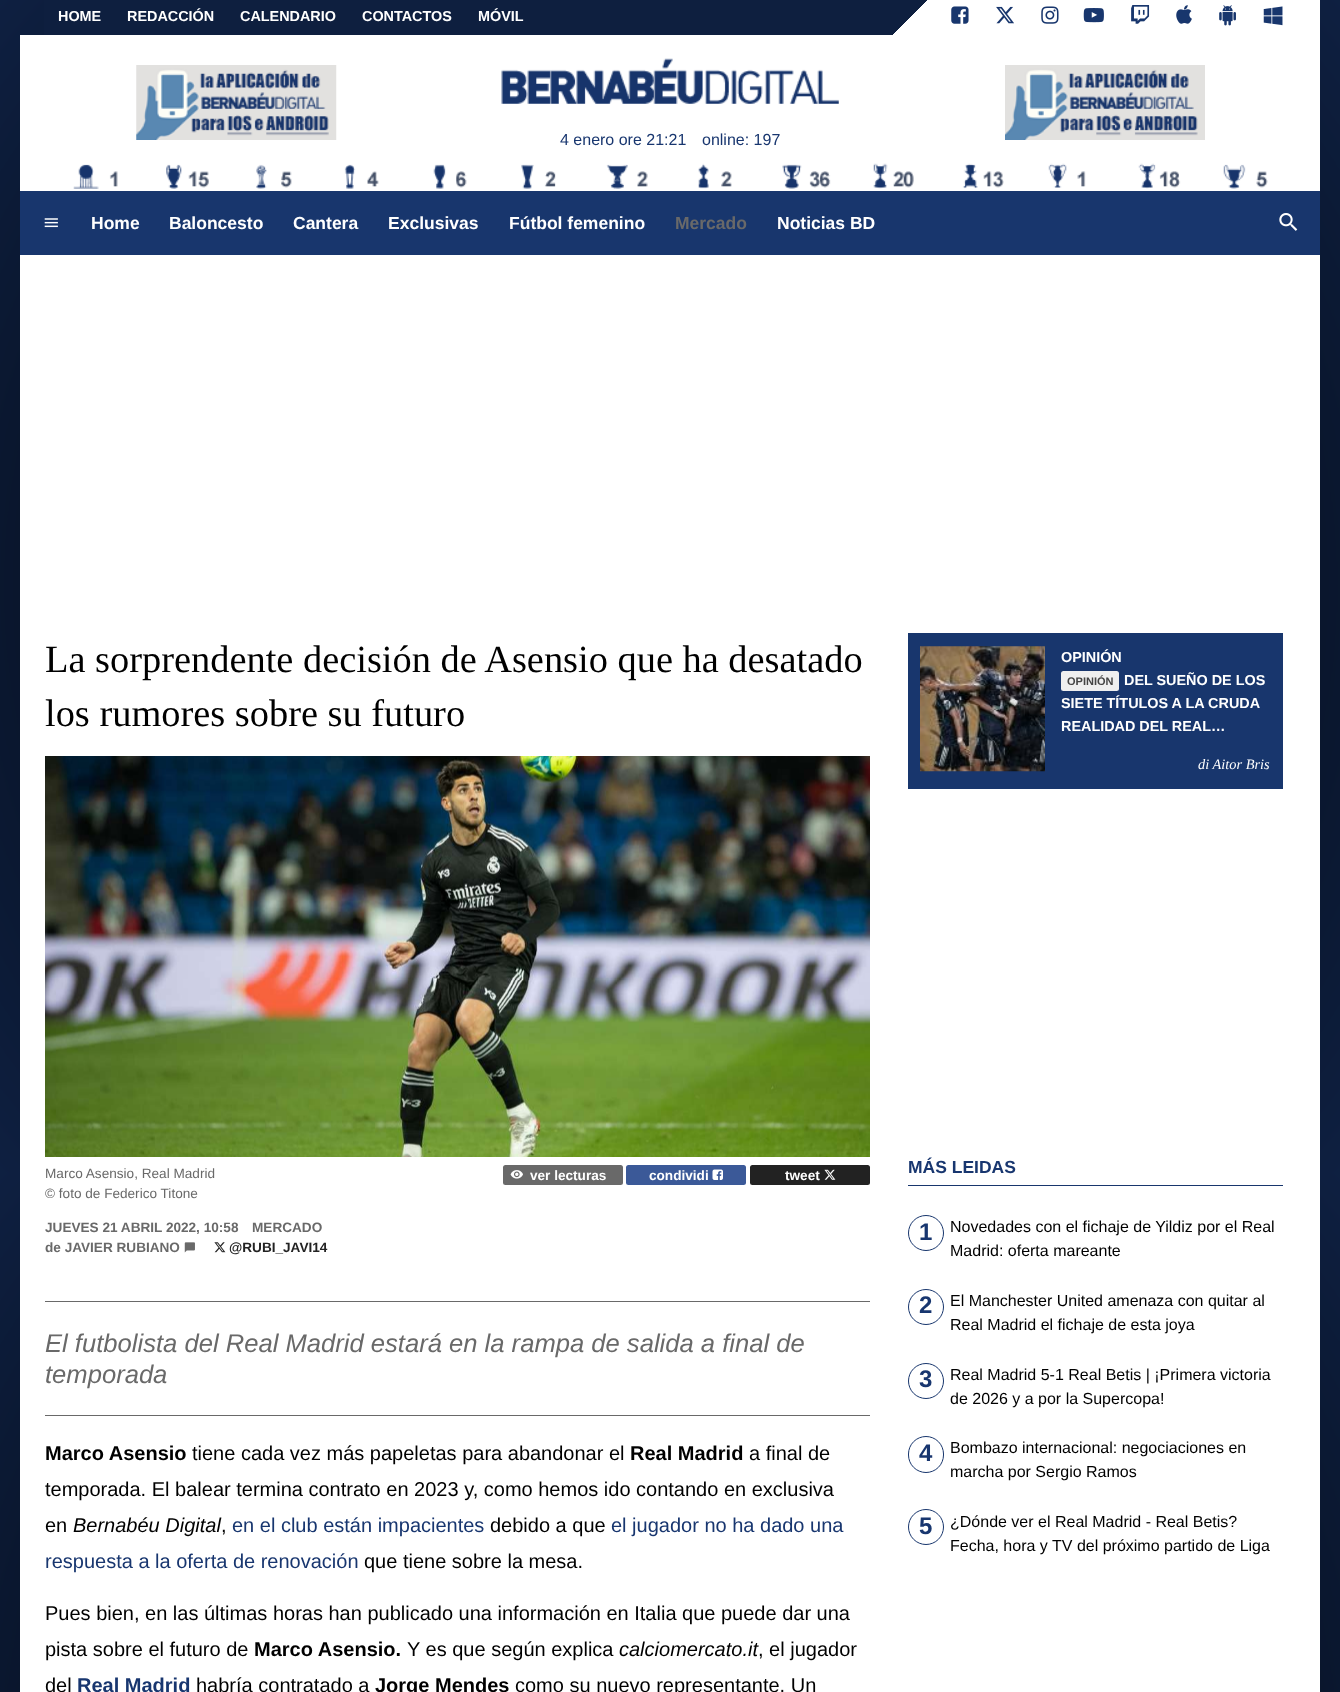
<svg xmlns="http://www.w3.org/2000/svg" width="1340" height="1692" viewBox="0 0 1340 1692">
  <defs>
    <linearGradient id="g1" gradientUnits="userSpaceOnUse" x1="336" y1="-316" x2="1004" y2="351"><stop offset="0.68" stop-color="rgb(14,31,63)"/><stop offset="0.68" stop-color="rgb(255,255,255)"/><stop offset="1" stop-color="rgb(255,255,255)"/></linearGradient>
  </defs>
  <rect width="100%" height="100%" fill="rgb(255,255,255)"/>
  <image x="0" y="0" width="1340" height="1692" href="pic1.png"/>
  <rect x="20" y="35" width="1300" height="1657" fill="rgb(255,255,255)"/>
  <rect x="44" y="0" width="1276" height="35" fill="url(#g1)"/>
  <g font-family="Liberation Sans" font-size="14.4" font-weight="bold" fill="rgb(255,255,255)">
    <text x="58" y="21">HOME</text>
    <text x="127" y="21">REDACCIÓN</text>
    <text x="240" y="21">CALENDARIO</text>
    <text x="362" y="21">CONTACTOS</text>
    <text x="478" y="21">MÓVIL</text>
  </g>
  <image x="951" y="6" width="18" height="18" href="pic2.png"/>
  <image x="996" y="6" width="18" height="18" href="pic3.png"/>
  <image x="1041" y="6" width="18" height="18" href="pic4.png"/>
  <image x="1083" y="8" width="21" height="15" href="pic5.png"/>
  <image x="1131" y="5" width="19" height="19" href="pic6.png"/>
  <image x="1176" y="5" width="16" height="19" href="pic7.png"/>
  <image x="1219" y="5" width="17" height="21" href="pic8.png"/>
  <image x="1263" y="6" width="20" height="20" href="pic9.png"/>
  <image x="73" y="163" width="1195" height="26" href="pic10.png"/>
  <image x="136" y="65" width="201" height="75" href="pic11.png"/>
  <image x="501" y="58" width="338" height="46" href="pic12.png"/>
  <g font-family="Liberation Sans" font-size="16" fill="rgb(24,54,111)">
    <text x="560" y="145">4 enero ore 21:21</text>
    <text x="702" y="145">online: 197</text>
  </g>
  <image x="1005" y="65" width="200" height="75" href="pic13.png"/>
  <rect x="20" y="191" width="1300" height="64" fill="rgb(24,54,109)"/>
  <image x="44" y="218" width="14" height="10" href="pic14.png"/>
  <g font-family="Liberation Sans" font-size="17.5" font-weight="bold" fill="rgb(255,255,255)">
    <text x="91" y="229">Home</text>
    <text x="169" y="229">Baloncesto</text>
    <text x="293" y="229">Cantera</text>
    <text x="388" y="229">Exclusivas</text>
    <text x="509" y="229">Fútbol femenino</text>
  </g>
  <text x="675" y="229" font-family="Liberation Sans" font-size="17.5" font-weight="bold" fill="rgb(105,105,105)">Mercado</text>
  <text x="777" y="229" font-family="Liberation Sans" font-size="17.5" font-weight="bold" fill="rgb(255,255,255)">Noticias BD</text>
  <image x="1279" y="213" width="19" height="18" href="pic15.png"/>
  <g font-family="Liberation Serif" font-size="38.4" fill="rgb(0,0,0)">
    <text>
      <tspan x="45" y="672">La sorprendente decisión de Asensio que ha desatado</tspan>
      <tspan x="45" y="726">los rumores sobre su futuro</tspan>
    </text>
  </g>
  <image x="45" y="756" width="825" height="401" href="pic16.png"/>
  <g font-family="Liberation Sans" font-size="13.6" fill="rgb(105,105,105)">
    <text>
      <tspan x="45" y="1178">Marco Asensio, Real Madrid</tspan>
      <tspan x="45" y="1198">© foto de Federico Titone</tspan>
    </text>
  </g>
  <rect x="503" y="1165" width="120" height="20" rx="2.5" fill="rgb(105,105,105)"/>
  <image x="510" y="1170" width="13" height="9" href="pic17.png"/>
  <text x="530" y="1180" font-family="Liberation Sans" font-size="13.6" font-weight="bold" fill="rgb(255,255,255)">ver lecturas</text>
  <rect x="626" y="1165" width="120" height="20" rx="2.5" fill="rgb(59,89,152)"/>
  <text x="649" y="1180" font-family="Liberation Sans" font-size="13.6" font-weight="bold" fill="rgb(255,255,255)">condividi</text>
  <image x="712" y="1169" width="11" height="11" href="pic18.png"/>
  <rect x="750" y="1165" width="120" height="20" rx="2.5" fill="rgb(34,34,34)"/>
  <text x="785" y="1180" font-family="Liberation Sans" font-size="13.6" font-weight="bold" fill="rgb(255,255,255)">tweet</text>
  <image x="824" y="1169" width="12" height="11" href="pic19.png"/>
  <g font-family="Liberation Sans" font-size="13.6" font-weight="bold" fill="rgb(105,105,105)">
    <text x="45" y="1232">JUEVES 21 ABRIL 2022, 10:58</text>
    <text x="252" y="1232">MERCADO</text>
    <text x="45" y="1252">de JAVIER RUBIANO</text>
  </g>
  <image x="184" y="1242" width="11" height="11" href="pic20.png"/>
  <image x="214" y="1242" width="12" height="11" href="pic21.png"/>
  <text x="229" y="1252" font-family="Liberation Sans" font-size="13.6" font-weight="bold" fill="rgb(34,34,34)">@RUBI_JAVI14</text>
  <rect x="45" y="1301" width="825" height="1" fill="rgb(105,105,105)"/>
  <rect x="45" y="1415" width="825" height="1" fill="rgb(105,105,105)"/>
  <g font-family="Liberation Sans" font-size="25.6" font-style="italic" fill="rgb(105,105,105)">
    <text>
      <tspan x="45" y="1352">El futbolista del Real Madrid estará en la rampa de salida a final de</tspan>
      <tspan x="45" y="1383">temporada</tspan>
    </text>
  </g>
  <text x="45" y="1460" font-family="Liberation Sans" font-size="20" font-weight="bold" fill="rgb(0,0,0)">Marco Asensio</text>
  <text x="192" y="1460" font-family="Liberation Sans" font-size="20" fill="rgb(0,0,0)">tiene cada vez más papeletas para abandonar el</text>
  <text x="630" y="1460" font-family="Liberation Sans" font-size="20" font-weight="bold" fill="rgb(0,0,0)">Real Madrid</text>
  <g font-family="Liberation Sans" font-size="20" fill="rgb(0,0,0)">
    <text x="749" y="1460">a final de</text>
    <text>
      <tspan x="45" y="1496">temporada. El balear termina contrato en 2023 y, como hemos ido contando en exclusiva</tspan>
      <tspan x="45" y="1532">en</tspan>
    </text>
  </g>
  <text x="73" y="1532" font-family="Liberation Sans" font-size="20" font-style="italic" fill="rgb(0,0,0)">Bernabéu Digital</text>
  <text x="221" y="1532" font-family="Liberation Sans" font-size="20" fill="rgb(0,0,0)">,</text>
  <text x="232" y="1532" font-family="Liberation Sans" font-size="20" fill="rgb(24,54,111)">en el club están impacientes</text>
  <text x="490" y="1532" font-family="Liberation Sans" font-size="20" fill="rgb(0,0,0)">debido a que</text>
  <g font-family="Liberation Sans" font-size="20" fill="rgb(24,54,111)">
    <text x="611" y="1532">el jugador no ha dado una</text>
    <text x="45" y="1568">respuesta a la oferta de renovación</text>
  </g>
  <g font-family="Liberation Sans" font-size="20" fill="rgb(0,0,0)">
    <text x="364" y="1568">que tiene sobre la mesa.</text>
    <text>
      <tspan x="45" y="1620">Pues bien, en las últimas horas han publicado una información en Italia que puede dar una</tspan>
      <tspan x="45" y="1656">pista sobre el futuro de</tspan>
    </text>
  </g>
  <text x="254" y="1656" font-family="Liberation Sans" font-size="20" font-weight="bold" fill="rgb(0,0,0)">Marco Asensio.</text>
  <text x="407" y="1656" font-family="Liberation Sans" font-size="20" fill="rgb(0,0,0)">Y es que según explica</text>
  <text x="619" y="1656" font-family="Liberation Sans" font-size="20" font-style="italic" fill="rgb(0,0,0)">calciomercato.it</text>
  <g font-family="Liberation Sans" font-size="20" fill="rgb(0,0,0)">
    <text x="758" y="1656">, el jugador</text>
    <text x="45" y="1692">del</text>
  </g>
  <text x="77" y="1692" font-family="Liberation Sans" font-size="20" font-weight="bold" fill="rgb(24,54,111)">Real Madrid</text>
  <text x="196" y="1692" font-family="Liberation Sans" font-size="20" fill="rgb(0,0,0)">habría contratado a</text>
  <text x="375" y="1692" font-family="Liberation Sans" font-size="20" font-weight="bold" fill="rgb(0,0,0)">Jorge Mendes</text>
  <text x="515" y="1692" font-family="Liberation Sans" font-size="20" fill="rgb(0,0,0)">como su nuevo representante. Un</text>
  <rect x="908" y="633" width="375" height="156" fill="rgb(24,54,109)"/>
  <image x="920" y="646" width="125" height="126" href="pic22.png"/>
  <text x="1061" y="662" font-family="Liberation Sans" font-size="14.4" font-weight="bold" fill="rgb(255,255,255)">OPINIÓN</text>
  <rect x="1061" y="671" width="58" height="20" rx="2.5" fill="rgb(239,239,239)"/>
  <text x="1067" y="685" font-family="Liberation Sans" font-size="11" font-weight="bold" fill="rgb(68,68,68)">OPINIÓN</text>
  <g font-family="Liberation Sans" font-size="14.4" font-weight="bold" fill="rgb(255,255,255)">
    <text x="1124" y="685">DEL SUEÑO DE LOS</text>
    <text>
      <tspan x="1061" y="708">SIETE TÍTULOS A LA CRUDA</tspan>
      <tspan x="1061" y="731">REALIDAD DEL REAL…</tspan>
    </text>
  </g>
  <text x="1198" y="769" font-family="Liberation Serif" font-size="14.4" font-style="italic" fill="rgb(255,255,255)">di Aitor Bris</text>
  <rect x="908" y="1185" width="375" height="1" fill="rgb(24,54,109)"/>
  <text x="908" y="1173" font-family="Liberation Sans" font-size="17.5" font-weight="bold" fill="rgb(24,54,111)">MÁS LEIDAS</text>
  <circle cx="926" cy="1233" r="17.5" fill="none" stroke="rgb(24,54,109)"/>
  <text x="919" y="1240" font-family="Liberation Sans" font-size="24" font-weight="bold" fill="rgb(24,54,111)">1</text>
  <g font-family="Liberation Sans" font-size="16" fill="rgb(0,0,0)">
    <text>
      <tspan x="950" y="1232">Novedades con el fichaje de Yildiz por el Real</tspan>
      <tspan x="950" y="1256">Madrid: oferta mareante</tspan>
    </text>
  </g>
  <circle cx="926" cy="1307" r="17.5" fill="none" stroke="rgb(24,54,109)"/>
  <text x="919" y="1313" font-family="Liberation Sans" font-size="24" font-weight="bold" fill="rgb(24,54,111)">2</text>
  <g font-family="Liberation Sans" font-size="16" fill="rgb(0,0,0)">
    <text>
      <tspan x="950" y="1306">El Manchester United amenaza con quitar al</tspan>
      <tspan x="950" y="1330">Real Madrid el fichaje de esta joya</tspan>
    </text>
  </g>
  <circle cx="926" cy="1381" r="17.5" fill="none" stroke="rgb(24,54,109)"/>
  <text x="919" y="1387" font-family="Liberation Sans" font-size="24" font-weight="bold" fill="rgb(24,54,111)">3</text>
  <g font-family="Liberation Sans" font-size="16" fill="rgb(0,0,0)">
    <text>
      <tspan x="950" y="1380">Real Madrid 5-1 Real Betis | ¡Primera victoria</tspan>
      <tspan x="950" y="1404">de 2026 y a por la Supercopa!</tspan>
    </text>
  </g>
  <rect x="908.5" y="1436.5" width="35" height="36" rx="17.5" fill="none" stroke="rgb(24,54,109)"/>
  <text x="919" y="1461" font-family="Liberation Sans" font-size="24" font-weight="bold" fill="rgb(24,54,111)">4</text>
  <g font-family="Liberation Sans" font-size="16" fill="rgb(0,0,0)">
    <text>
      <tspan x="950" y="1453">Bombazo internacional: negociaciones en</tspan>
      <tspan x="950" y="1477">marcha por Sergio Ramos</tspan>
    </text>
  </g>
  <circle cx="926" cy="1527" r="17.5" fill="none" stroke="rgb(24,54,109)"/>
  <text x="919" y="1534" font-family="Liberation Sans" font-size="24" font-weight="bold" fill="rgb(24,54,111)">5</text>
  <g font-family="Liberation Sans" font-size="16" fill="rgb(0,0,0)">
    <text>
      <tspan x="950" y="1527">¿Dónde ver el Real Madrid - Real Betis?</tspan>
      <tspan x="950" y="1551">Fecha, hora y TV del próximo partido de Liga</tspan>
    </text>
  </g>
</svg>
